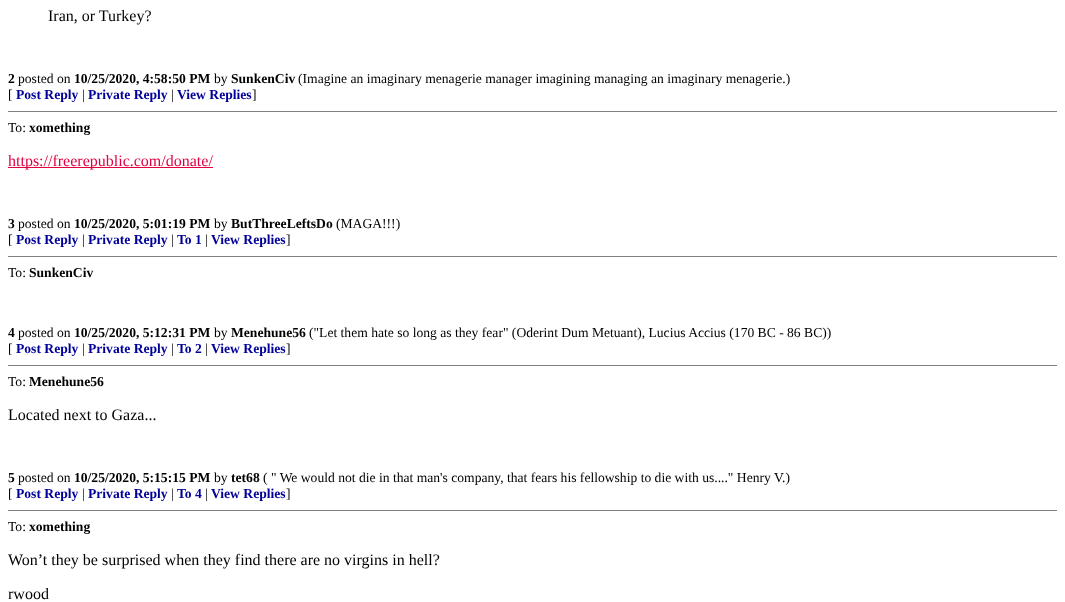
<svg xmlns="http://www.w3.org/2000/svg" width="1065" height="602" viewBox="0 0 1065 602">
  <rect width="100%" height="100%" fill="rgb(255,255,255)"/>
  <text x="48" y="21" font-family="Liberation Serif" font-size="16" fill="rgb(0,0,0)">Iran, or Turkey?</text>
  <text x="8" y="83" font-family="Liberation Serif" font-size="13.6" font-weight="bold" fill="rgb(0,0,0)">2</text>
  <text x="18" y="83" font-family="Liberation Serif" font-size="13.6" fill="rgb(0,0,0)">posted on</text>
  <text x="74" y="83" font-family="Liberation Serif" font-size="13.6" font-weight="bold" fill="rgb(0,0,0)">10/25/2020, 4:58:50 PM</text>
  <text x="214" y="83" font-family="Liberation Serif" font-size="13.6" fill="rgb(0,0,0)">by</text>
  <text x="231" y="83" font-family="Liberation Serif" font-size="13.6" font-weight="bold" fill="rgb(0,0,0)">SunkenCiv</text>
  <g font-family="Liberation Serif" font-size="13.6" fill="rgb(0,0,0)">
    <text x="298" y="83">(Imagine an imaginary menagerie manager imagining managing an imaginary menagerie.)</text>
    <text x="8" y="99">[</text>
  </g>
  <text x="16" y="99" font-family="Liberation Serif" font-size="13.6" font-weight="bold" fill="rgb(0,0,153)">Post Reply</text>
  <text x="82" y="99" font-family="Liberation Serif" font-size="13.6" fill="rgb(0,0,0)">|</text>
  <text x="88" y="99" font-family="Liberation Serif" font-size="13.6" font-weight="bold" fill="rgb(0,0,153)">Private Reply</text>
  <text x="171" y="99" font-family="Liberation Serif" font-size="13.6" fill="rgb(0,0,0)">|</text>
  <text x="177" y="99" font-family="Liberation Serif" font-size="13.6" font-weight="bold" fill="rgb(0,0,153)">View Replies</text>
  <text x="252" y="99" font-family="Liberation Serif" font-size="13.6" fill="rgb(0,0,0)">]</text>
  <rect x="8" y="111" width="1049" height="1" fill="rgb(128,128,128)"/>
  <text x="8" y="132" font-family="Liberation Serif" font-size="13.6" fill="rgb(0,0,0)">To:</text>
  <text x="29" y="132" font-family="Liberation Serif" font-size="13.6" font-weight="bold" fill="rgb(0,0,0)">xomething</text>
  <rect x="8" y="167" width="205" height="1" fill="rgb(224,0,64)"/>
  <text x="8" y="166" font-family="Liberation Serif" font-size="16" fill="rgb(224,0,64)">https://freerepublic.com/donate/</text>
  <text x="8" y="228" font-family="Liberation Serif" font-size="13.6" font-weight="bold" fill="rgb(0,0,0)">3</text>
  <text x="18" y="228" font-family="Liberation Serif" font-size="13.6" fill="rgb(0,0,0)">posted on</text>
  <text x="74" y="228" font-family="Liberation Serif" font-size="13.6" font-weight="bold" fill="rgb(0,0,0)">10/25/2020, 5:01:19 PM</text>
  <text x="214" y="228" font-family="Liberation Serif" font-size="13.6" fill="rgb(0,0,0)">by</text>
  <text x="231" y="228" font-family="Liberation Serif" font-size="13.6" font-weight="bold" fill="rgb(0,0,0)">ButThreeLeftsDo</text>
  <g font-family="Liberation Serif" font-size="13.6" fill="rgb(0,0,0)">
    <text x="336" y="228">(MAGA!!!)</text>
    <text x="8" y="244">[</text>
  </g>
  <text x="16" y="244" font-family="Liberation Serif" font-size="13.6" font-weight="bold" fill="rgb(0,0,153)">Post Reply</text>
  <text x="82" y="244" font-family="Liberation Serif" font-size="13.6" fill="rgb(0,0,0)">|</text>
  <text x="88" y="244" font-family="Liberation Serif" font-size="13.6" font-weight="bold" fill="rgb(0,0,153)">Private Reply</text>
  <text x="171" y="244" font-family="Liberation Serif" font-size="13.6" fill="rgb(0,0,0)">|</text>
  <text x="177" y="244" font-family="Liberation Serif" font-size="13.6" font-weight="bold" fill="rgb(0,0,153)">To 1</text>
  <text x="205" y="244" font-family="Liberation Serif" font-size="13.6" fill="rgb(0,0,0)">|</text>
  <text x="211" y="244" font-family="Liberation Serif" font-size="13.6" font-weight="bold" fill="rgb(0,0,153)">View Replies</text>
  <text x="286" y="244" font-family="Liberation Serif" font-size="13.6" fill="rgb(0,0,0)">]</text>
  <rect x="8" y="256" width="1049" height="1" fill="rgb(128,128,128)"/>
  <text x="8" y="277" font-family="Liberation Serif" font-size="13.6" fill="rgb(0,0,0)">To:</text>
  <g font-family="Liberation Serif" font-size="13.6" font-weight="bold" fill="rgb(0,0,0)">
    <text x="29" y="277">SunkenCiv</text>
    <text x="8" y="337">4</text>
  </g>
  <text x="18" y="337" font-family="Liberation Serif" font-size="13.6" fill="rgb(0,0,0)">posted on</text>
  <text x="74" y="337" font-family="Liberation Serif" font-size="13.6" font-weight="bold" fill="rgb(0,0,0)">10/25/2020, 5:12:31 PM</text>
  <text x="214" y="337" font-family="Liberation Serif" font-size="13.6" fill="rgb(0,0,0)">by</text>
  <text x="231" y="337" font-family="Liberation Serif" font-size="13.6" font-weight="bold" fill="rgb(0,0,0)">Menehune56</text>
  <g font-family="Liberation Serif" font-size="13.6" fill="rgb(0,0,0)">
    <text x="309" y="337">("Let them hate so long as they fear" (Oderint Dum Metuant), Lucius Accius (170 BC - 86 BC))</text>
    <text x="8" y="353">[</text>
  </g>
  <text x="16" y="353" font-family="Liberation Serif" font-size="13.6" font-weight="bold" fill="rgb(0,0,153)">Post Reply</text>
  <text x="82" y="353" font-family="Liberation Serif" font-size="13.6" fill="rgb(0,0,0)">|</text>
  <text x="88" y="353" font-family="Liberation Serif" font-size="13.6" font-weight="bold" fill="rgb(0,0,153)">Private Reply</text>
  <text x="171" y="353" font-family="Liberation Serif" font-size="13.6" fill="rgb(0,0,0)">|</text>
  <text x="177" y="353" font-family="Liberation Serif" font-size="13.6" font-weight="bold" fill="rgb(0,0,153)">To 2</text>
  <text x="205" y="353" font-family="Liberation Serif" font-size="13.6" fill="rgb(0,0,0)">|</text>
  <text x="211" y="353" font-family="Liberation Serif" font-size="13.6" font-weight="bold" fill="rgb(0,0,153)">View Replies</text>
  <text x="286" y="353" font-family="Liberation Serif" font-size="13.6" fill="rgb(0,0,0)">]</text>
  <rect x="8" y="365" width="1049" height="1" fill="rgb(128,128,128)"/>
  <text x="8" y="386" font-family="Liberation Serif" font-size="13.6" fill="rgb(0,0,0)">To:</text>
  <text x="29" y="386" font-family="Liberation Serif" font-size="13.6" font-weight="bold" fill="rgb(0,0,0)">Menehune56</text>
  <text x="8" y="420" font-family="Liberation Serif" font-size="16" fill="rgb(0,0,0)">Located next to Gaza...</text>
  <text x="8" y="482" font-family="Liberation Serif" font-size="13.6" font-weight="bold" fill="rgb(0,0,0)">5</text>
  <text x="18" y="482" font-family="Liberation Serif" font-size="13.6" fill="rgb(0,0,0)">posted on</text>
  <text x="74" y="482" font-family="Liberation Serif" font-size="13.6" font-weight="bold" fill="rgb(0,0,0)">10/25/2020, 5:15:15 PM</text>
  <text x="214" y="482" font-family="Liberation Serif" font-size="13.6" fill="rgb(0,0,0)">by</text>
  <text x="231" y="482" font-family="Liberation Serif" font-size="13.6" font-weight="bold" fill="rgb(0,0,0)">tet68</text>
  <g font-family="Liberation Serif" font-size="13.6" fill="rgb(0,0,0)">
    <text x="263" y="482">( " We would not die in that man's company, that fears his fellowship to die with us...." Henry V.)</text>
    <text x="8" y="498">[</text>
  </g>
  <text x="16" y="498" font-family="Liberation Serif" font-size="13.6" font-weight="bold" fill="rgb(0,0,153)">Post Reply</text>
  <text x="82" y="498" font-family="Liberation Serif" font-size="13.6" fill="rgb(0,0,0)">|</text>
  <text x="88" y="498" font-family="Liberation Serif" font-size="13.6" font-weight="bold" fill="rgb(0,0,153)">Private Reply</text>
  <text x="171" y="498" font-family="Liberation Serif" font-size="13.6" fill="rgb(0,0,0)">|</text>
  <text x="177" y="498" font-family="Liberation Serif" font-size="13.6" font-weight="bold" fill="rgb(0,0,153)">To 4</text>
  <text x="205" y="498" font-family="Liberation Serif" font-size="13.6" fill="rgb(0,0,0)">|</text>
  <text x="211" y="498" font-family="Liberation Serif" font-size="13.6" font-weight="bold" fill="rgb(0,0,153)">View Replies</text>
  <text x="286" y="498" font-family="Liberation Serif" font-size="13.6" fill="rgb(0,0,0)">]</text>
  <rect x="8" y="510" width="1049" height="1" fill="rgb(128,128,128)"/>
  <text x="8" y="531" font-family="Liberation Serif" font-size="13.6" fill="rgb(0,0,0)">To:</text>
  <text x="29" y="531" font-family="Liberation Serif" font-size="13.6" font-weight="bold" fill="rgb(0,0,0)">xomething</text>
  <g font-family="Liberation Serif" font-size="16" fill="rgb(0,0,0)">
    <text x="8" y="565">Won’t they be surprised when they find there are no virgins in hell?</text>
    <text x="8" y="599">rwood</text>
  </g>
</svg>
